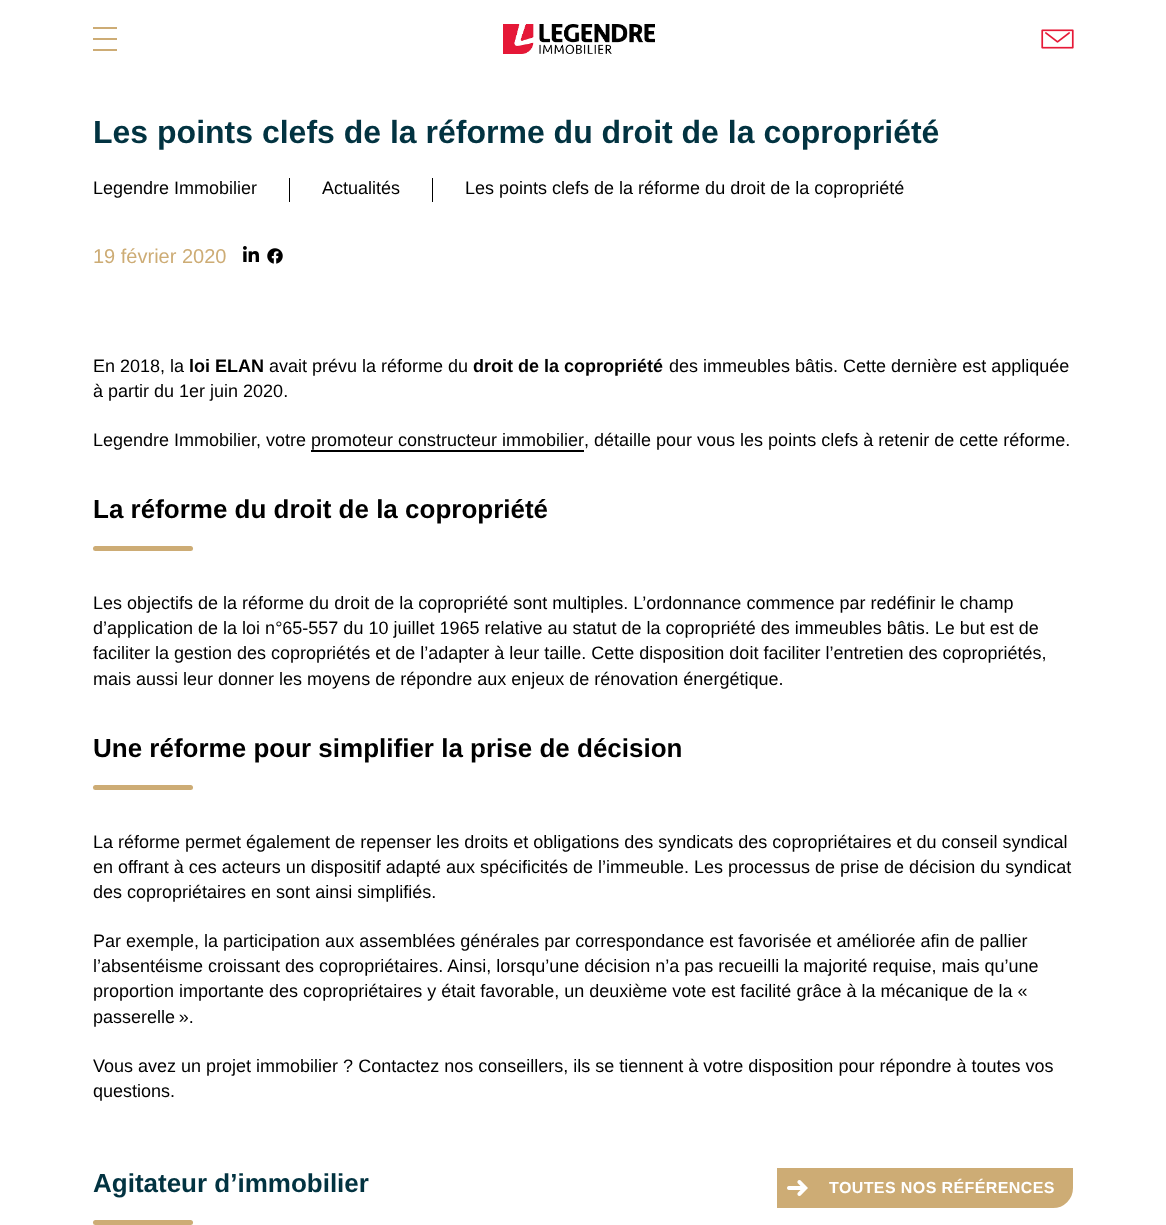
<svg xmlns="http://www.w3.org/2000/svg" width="1166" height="1225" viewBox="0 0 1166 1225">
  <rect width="100%" height="100%" fill="rgb(255,255,255)"/>
  <rect x="93" y="27" width="24" height="2" fill="rgb(205,172,117)"/>
  <rect x="93" y="38" width="24" height="2" fill="rgb(205,172,117)"/>
  <rect x="93" y="49" width="24" height="2" fill="rgb(205,172,117)"/>
  <image x="503" y="24" width="152" height="30" href="pic1.png"/>
  <image x="1041" y="29" width="33" height="20" href="pic2.png"/>
  <text x="93" y="143" font-family="Liberation Sans" font-size="32" font-weight="bold" fill="rgb(2,51,65)">Les points clefs de la réforme du droit de la copropriété</text>
  <text x="93" y="194" font-family="Liberation Sans" font-size="18" fill="rgb(0,0,0)">Legendre Immobilier</text>
  <rect x="289" y="178" width="1" height="24" fill="rgb(0,0,0)"/>
  <text x="322" y="194" font-family="Liberation Sans" font-size="18" fill="rgb(0,0,0)">Actualités</text>
  <rect x="432" y="178" width="1" height="24" fill="rgb(0,0,0)"/>
  <text x="465" y="194" font-family="Liberation Sans" font-size="18" fill="rgb(0,0,0)">Les points clefs de la réforme du droit de la copropriété</text>
  <text x="93" y="263" font-family="Liberation Sans" font-size="20" fill="rgb(205,172,117)">19 février 2020</text>
  <image x="243" y="246" width="16" height="16" href="pic3.png"/>
  <image x="267" y="248" width="16" height="16" href="pic4.png"/>
  <text x="93" y="372" font-family="Liberation Sans" font-size="18" fill="rgb(0,0,0)">En 2018, la</text>
  <text x="189" y="372" font-family="Liberation Sans" font-size="18" font-weight="bold" fill="rgb(0,0,0)">loi ELAN</text>
  <text x="269" y="372" font-family="Liberation Sans" font-size="18" fill="rgb(0,0,0)">avait prévu la réforme du</text>
  <text x="473" y="372" font-family="Liberation Sans" font-size="18" font-weight="bold" fill="rgb(0,0,0)">droit de la copropriété</text>
  <g font-family="Liberation Sans" font-size="18" fill="rgb(0,0,0)">
    <text x="669" y="372">des immeubles bâtis. Cette dernière est appliquée</text>
    <text x="93" y="397">à partir du 1er juin 2020.</text>
    <text x="93" y="446">Legendre Immobilier, votre</text>
    <text x="311" y="446">promoteur constructeur immobilier</text>
  </g>
  <rect x="311" y="450" width="273" height="2" fill="rgb(0,0,0)"/>
  <text x="584" y="446" font-family="Liberation Sans" font-size="18" fill="rgb(0,0,0)">, détaille pour vous les points clefs à retenir de cette réforme.</text>
  <text x="93" y="518" font-family="Liberation Sans" font-size="26" font-weight="bold" fill="rgb(0,0,0)">La réforme du droit de la copropriété</text>
  <rect x="93" y="546" width="100" height="5" rx="2.5" fill="rgb(205,172,117)"/>
  <g font-family="Liberation Sans" font-size="18" fill="rgb(0,0,0)">
    <text>
      <tspan x="93" y="609">Les objectifs de la réforme du droit de la copropriété sont multiples. L’ordonnance commence par redéfinir le champ</tspan>
      <tspan x="93" y="634">d’application de la loi n°65-557 du 10 juillet 1965 relative au statut de la copropriété des immeubles bâtis. Le but est de</tspan>
      <tspan x="93" y="659">faciliter la gestion des copropriétés et de l’adapter à leur taille. Cette disposition doit faciliter l’entretien des copropriétés,</tspan>
      <tspan x="93" y="685">mais aussi leur donner les moyens de répondre aux enjeux de rénovation énergétique.</tspan>
    </text>
  </g>
  <text x="93" y="757" font-family="Liberation Sans" font-size="26" font-weight="bold" fill="rgb(0,0,0)">Une réforme pour simplifier la prise de décision</text>
  <rect x="93" y="785" width="100" height="5" rx="2.5" fill="rgb(205,172,117)"/>
  <g font-family="Liberation Sans" font-size="18" fill="rgb(0,0,0)">
    <text>
      <tspan x="93" y="848">La réforme permet également de repenser les droits et obligations des syndicats des copropriétaires et du conseil syndical</tspan>
      <tspan x="93" y="873">en offrant à ces acteurs un dispositif adapté aux spécificités de l’immeuble. Les processus de prise de décision du syndicat</tspan>
      <tspan x="93" y="898">des copropriétaires en sont ainsi simplifiés.</tspan>
    </text>
    <text>
      <tspan x="93" y="947">Par exemple, la participation aux assemblées générales par correspondance est favorisée et améliorée afin de pallier</tspan>
      <tspan x="93" y="972">l’absentéisme croissant des copropriétaires. Ainsi, lorsqu’une décision n’a pas recueilli la majorité requise, mais qu’une</tspan>
      <tspan x="93" y="997">proportion importante des copropriétaires y était favorable, un deuxième vote est facilité grâce à la mécanique de la «</tspan>
      <tspan x="93" y="1023">passerelle ».</tspan>
    </text>
    <text>
      <tspan x="93" y="1072">Vous avez un projet immobilier ? Contactez nos conseillers, ils se tiennent à votre disposition pour répondre à toutes vos</tspan>
      <tspan x="93" y="1097">questions.</tspan>
    </text>
  </g>
  <text x="93" y="1192" font-family="Liberation Sans" font-size="26" font-weight="bold" fill="rgb(2,51,65)">Agitateur d’immobilier</text>
  <rect x="93" y="1220" width="100" height="5" rx="2.5" fill="rgb(205,172,117)"/>
  <path d="M778 1169H1072V1188C1072 1198.5 1063.5 1207 1053 1207H778Z" fill="rgb(205,172,117)" stroke="rgb(205,172,117)" stroke-width="2"/>
  <image x="787" y="1180" width="21" height="16" href="pic5.png"/>
  <text x="829" y="1193" font-family="Liberation Sans" font-size="16" font-weight="bold" letter-spacing="0.4" fill="rgb(255,255,255)">TOUTES NOS RÉFÉRENCES</text>
</svg>
